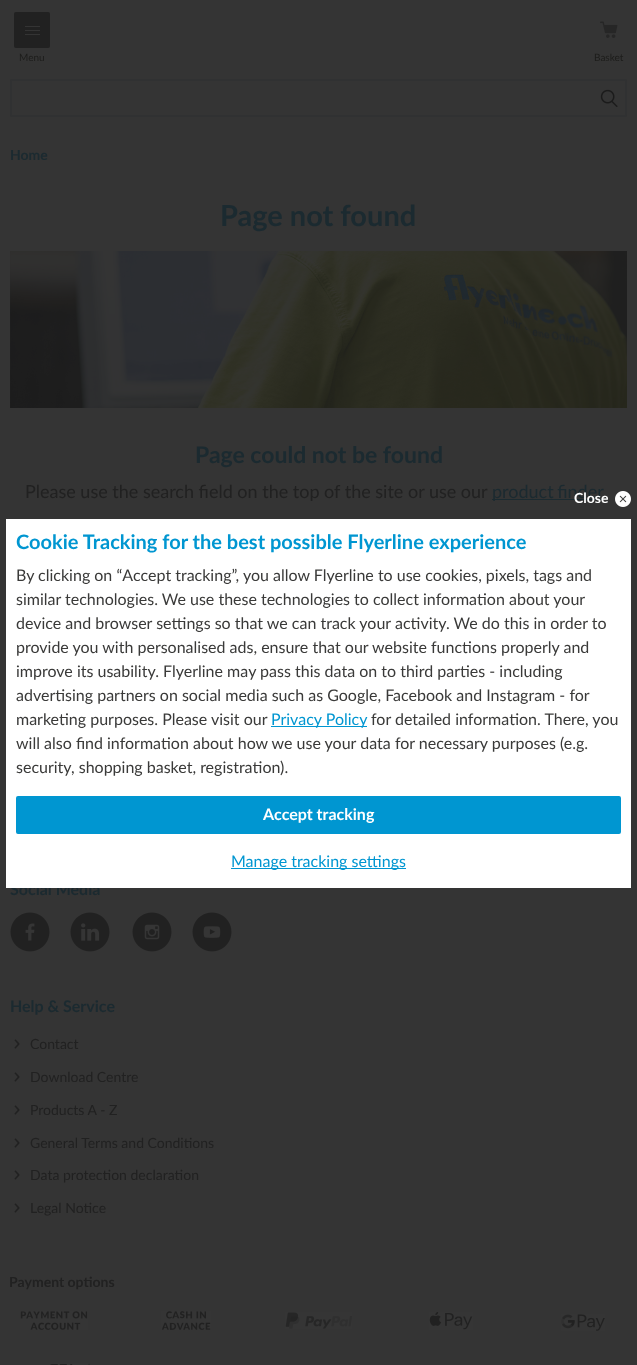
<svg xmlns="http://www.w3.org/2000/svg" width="637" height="1365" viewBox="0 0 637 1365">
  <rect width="100%" height="100%" fill="rgb(52,52,52)"/>
  <rect x="15" y="13" width="34" height="34" rx="1" fill="rgb(33,33,33)" stroke="rgb(33,33,33)" stroke-width="2"/>
  <rect x="25" y="30" width="15" height="1" fill="rgb(52,52,52)"/>
  <rect x="25" y="26" width="15" height="1" fill="rgb(52,52,52)"/>
  <rect x="25" y="34" width="15" height="1" fill="rgb(52,52,52)"/>
  <text x="19" y="61" font-family="Lato" font-size="10" fill="rgb(29,29,27)">Menu</text>
  <image x="600" y="21" width="18" height="17" href="pic1.png"/>
  <text x="594" y="61" font-family="Lato" font-size="10" fill="rgb(29,29,27)">Basket</text>
  <rect x="11" y="80" width="615" height="36" rx="1" fill="none" stroke="rgb(48,49,50)" stroke-width="2"/>
  <image x="600" y="89" width="18" height="18" href="pic2.png"/>
  <text x="10" y="160" font-family="Lato" font-size="14" font-weight="bold" fill="rgb(27,42,48)">Home</text>
  <text x="220" y="226" font-family="Lato" font-size="29" font-weight="bold" fill="rgb(27,42,48)">Page not found</text>
  <image x="10" y="251" width="617" height="157" href="pic3.png"/>
  <text x="195" y="463" font-family="Lato" font-size="23" font-weight="bold" fill="rgb(27,42,48)">Page could not be found</text>
  <text x="25" y="498" font-family="Lato" font-size="18" fill="rgb(33,33,33)">Please use the search field on the top of the site or use our</text>
  <rect x="492" y="499" width="112" height="1" fill="rgb(27,42,48)"/>
  <text x="492" y="498" word-spacing="-1" font-family="Lato" font-size="18" fill="rgb(27,42,48)">product finder</text>
  <text x="604" y="498" font-family="Lato" font-size="18" fill="rgb(33,33,33)">.</text>
  <text x="574" y="503" font-family="Lato" font-size="14" font-weight="bold" fill="rgb(255,255,255)">Close</text>
  <image x="615" y="491" width="16" height="16" href="pic4.png"/>
  <text x="10" y="895" font-family="Lato" font-size="16" font-weight="bold" fill="rgb(27,42,48)">Social Media</text>
  <rect x="6" y="519" width="625" height="369" fill="rgb(255,255,255)"/>
  <text x="16" y="549" font-family="Lato" font-size="20" font-weight="bold" fill="rgb(0,150,209)">Cookie Tracking for the best possible Flyerline experience</text>
  <g font-family="Lato" font-size="16" fill="rgb(58,58,57)">
    <text>
      <tspan x="16" y="581">By clicking on “Accept tracking”, you allow Flyerline to use cookies, pixels, tags and</tspan>
      <tspan x="16" y="605">similar technologies. We use these technologies to collect information about your</tspan>
      <tspan x="16" y="629">device and browser settings so that we can track your activity. We do this in order to</tspan>
      <tspan x="16" y="653">provide you with personalised ads, ensure that our website functions properly and</tspan>
      <tspan x="16" y="677">improve its usability. Flyerline may pass this data on to third parties - including</tspan>
      <tspan x="16" y="701">advertising partners on social media such as Google, Facebook and Instagram - for</tspan>
      <tspan x="16" y="725">marketing purposes. Please visit our</tspan>
    </text>
  </g>
  <rect x="271" y="726" width="96" height="1" fill="rgb(0,150,209)"/>
  <text x="271" y="725" font-family="Lato" font-size="16" fill="rgb(0,150,209)">Privacy Policy</text>
  <g font-family="Lato" font-size="16" fill="rgb(58,58,57)">
    <text x="371" y="725">for detailed information. There, you</text>
    <text>
      <tspan x="16" y="749">will also find information about how we use your data for necessary purposes (e.g.</tspan>
      <tspan x="16" y="773">security, shopping basket, registration).</tspan>
    </text>
  </g>
  <rect x="17" y="797" width="603" height="36" rx="1" fill="rgb(0,150,209)" stroke="rgb(0,150,209)" stroke-width="2"/>
  <text x="263" y="820" font-family="Lato" font-size="16" font-weight="bold" fill="rgb(255,255,255)">Accept tracking</text>
  <rect x="231" y="868" width="175" height="1" fill="rgb(0,150,209)"/>
  <text x="231" y="867" font-family="Lato" font-size="16" fill="rgb(0,150,209)">Manage tracking settings</text>
  <image x="10" y="912" width="40" height="40" href="pic5.png"/>
  <image x="70" y="912" width="40" height="40" href="pic6.png"/>
  <image x="132" y="912" width="40" height="40" href="pic7.png"/>
  <image x="192" y="912" width="40" height="40" href="pic8.png"/>
  <text x="10" y="1012" font-family="Lato" font-size="16" font-weight="bold" fill="rgb(27,42,48)">Help &amp; Service</text>
  <image x="14" y="1039" width="6" height="10" href="pic9.png"/>
  <text x="30" y="1049" font-family="Lato" font-size="14" fill="rgb(33,33,33)">Contact</text>
  <image x="14" y="1072" width="6" height="10" href="pic9.png"/>
  <text x="30" y="1082" font-family="Lato" font-size="14" fill="rgb(33,33,33)">Download Centre</text>
  <image x="14" y="1105" width="6" height="10" href="pic9.png"/>
  <text x="30" y="1115" font-family="Lato" font-size="14" fill="rgb(33,33,33)">Products A - Z</text>
  <image x="14" y="1138" width="6" height="10" href="pic9.png"/>
  <text x="30" y="1148" font-family="Lato" font-size="14" fill="rgb(33,33,33)">General Terms and Conditions</text>
  <image x="14" y="1170" width="6" height="10" href="pic9.png"/>
  <text x="30" y="1180" font-family="Lato" font-size="14" fill="rgb(33,33,33)">Data protection declaration</text>
  <image x="14" y="1203" width="6" height="10" href="pic9.png"/>
  <text x="30" y="1213" font-family="Lato" font-size="14" fill="rgb(33,33,33)">Legal Notice</text>
  <text x="9" y="1287" font-family="Lato" font-size="14" font-weight="bold" fill="rgb(33,33,33)">Payment options</text>
  <image x="20" y="1311" width="68" height="19" href="pic10.png"/>
  <image x="161" y="1311" width="50" height="19" href="pic11.png"/>
  <image x="285" y="1312" width="67" height="17" href="pic12.png"/>
  <image x="429" y="1312" width="44" height="18" href="pic13.png"/>
  <image x="561" y="1314" width="44" height="17" href="pic14.png"/>
  <image x="50" y="1363" width="40" height="2" href="pic15.png"/>
</svg>
